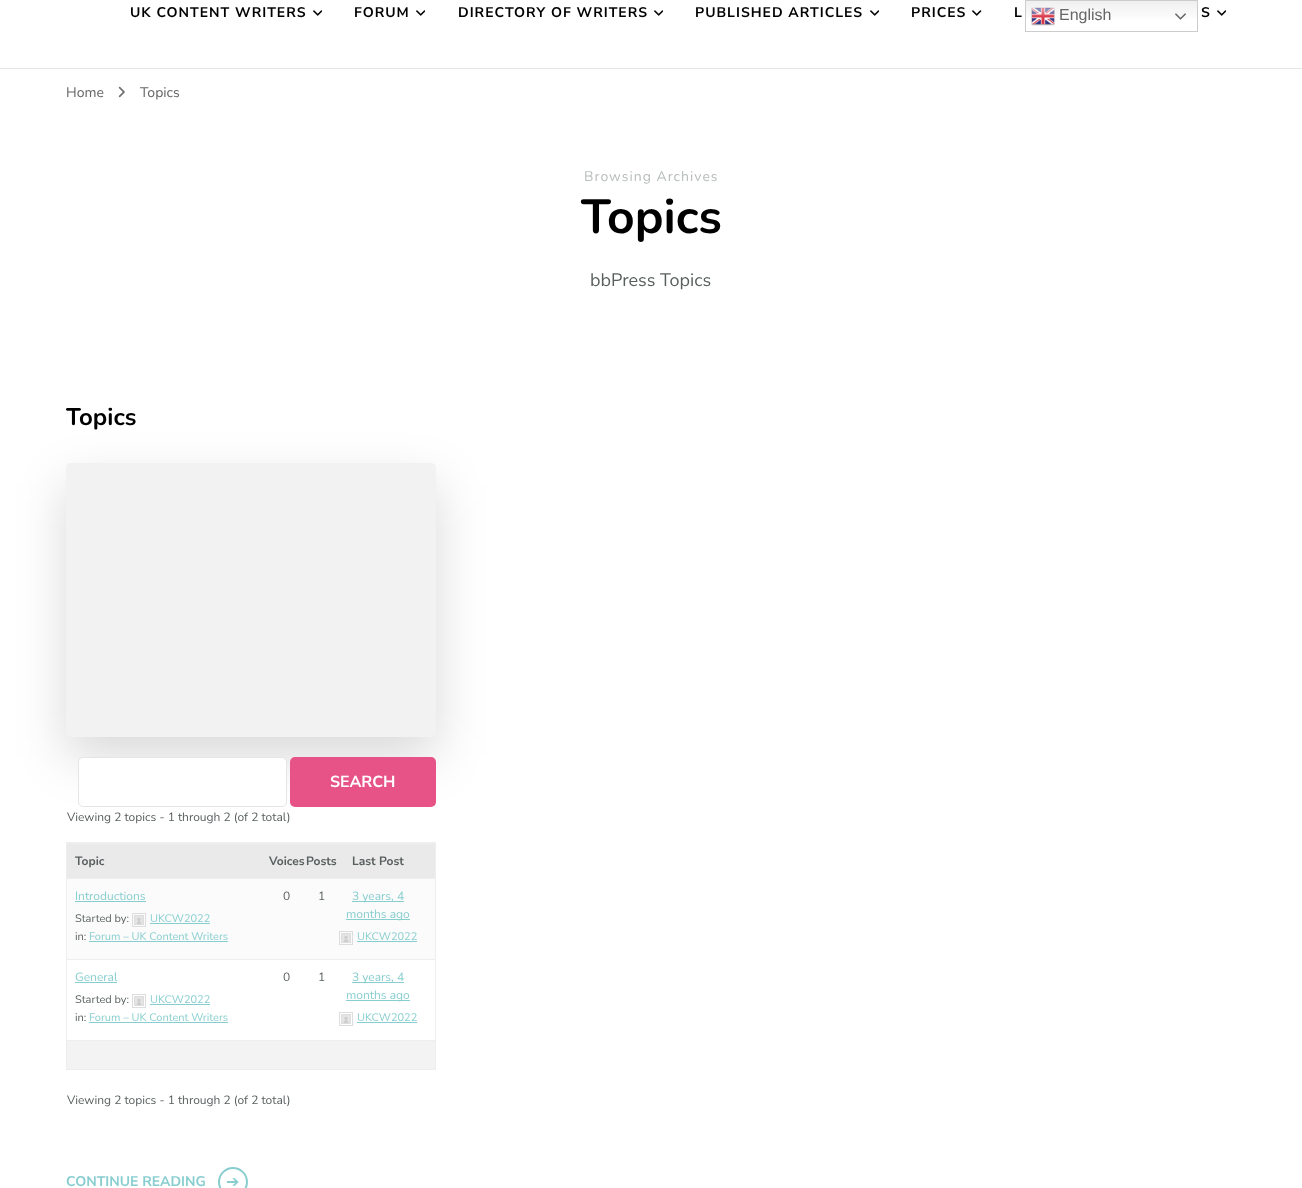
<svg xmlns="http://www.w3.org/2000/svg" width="1302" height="1188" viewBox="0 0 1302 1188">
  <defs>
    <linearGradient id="g1" gradientUnits="userSpaceOnUse" x1="1112" y1="0" x2="1112" y2="32"><stop offset="0" stop-color="rgb(239,239,239)"/><stop offset="0.7" stop-color="rgb(255,255,255)"/></linearGradient>
  </defs>
  <rect width="100%" height="100%" fill="rgb(255,255,255)"/>
  <rect x="0" y="68" width="1302" height="1" fill="rgb(229,229,229)"/>
  <text x="130" y="17" font-family="Nunito Sans" font-size="14" font-weight="bold" letter-spacing="1" fill="rgb(0,0,0)">UK CONTENT WRITERS</text>
  <image x="313" y="10" width="9" height="6" href="pic1.png"/>
  <text x="354" y="17" font-family="Nunito Sans" font-size="14" font-weight="bold" letter-spacing="1" fill="rgb(0,0,0)">FORUM</text>
  <image x="416" y="10" width="9" height="6" href="pic1.png"/>
  <text x="458" y="17" font-family="Nunito Sans" font-size="14" font-weight="bold" letter-spacing="1" fill="rgb(0,0,0)">DIRECTORY OF WRITERS</text>
  <image x="654" y="10" width="9" height="6" href="pic1.png"/>
  <text x="695" y="17" font-family="Nunito Sans" font-size="14" font-weight="bold" letter-spacing="1" fill="rgb(0,0,0)">PUBLISHED ARTICLES</text>
  <image x="870" y="10" width="9" height="6" href="pic1.png"/>
  <text x="911" y="17" font-family="Nunito Sans" font-size="14" font-weight="bold" letter-spacing="1" fill="rgb(0,0,0)">PRICES</text>
  <image x="972" y="10" width="10" height="6" href="pic2.png"/>
  <g font-family="Nunito Sans" font-size="14" font-weight="bold" letter-spacing="1" fill="rgb(0,0,0)">
    <text x="1014" y="17">L</text>
    <text x="1201" y="17">S</text>
  </g>
  <image x="1217" y="10" width="9" height="6" href="pic1.png"/>
  <text x="66" y="97" font-family="Nunito Sans" font-size="14" fill="rgb(102,102,102)">Home</text>
  <image x="118" y="86" width="7" height="12" href="pic3.png"/>
  <text x="140" y="97" font-family="Nunito Sans" font-size="14" fill="rgb(102,102,102)">Topics</text>
  <text x="584" y="181" font-family="Nunito" font-size="14" letter-spacing="1" fill="rgb(185,189,189)">Browsing Archives</text>
  <text x="581" y="233" font-family="Nunito" font-size="48" font-weight="bold" fill="rgb(0,0,0)">Topics</text>
  <text x="590" y="286" font-family="Nunito Sans" font-size="18" fill="rgb(89,95,95)">bbPress Topics</text>
  <rect x="66" y="483" width="370" height="274" rx="5" fill="rgba(0,0,0,0.15)" filter="blur(25px)"/>
  <rect x="66" y="463" width="370" height="274" rx="5" fill="rgb(242,242,242)"/>
  <text x="66" y="425" font-family="Nunito" font-size="24" font-weight="bold" fill="rgb(0,0,0)">Topics</text>
  <rect x="78.5" y="757.5" width="208" height="49" rx="4.5" fill="rgb(255,255,255)" stroke="rgb(229,229,229)"/>
  <rect x="290" y="757" width="146" height="50" rx="5" fill="rgb(231,83,135)"/>
  <text x="330" y="787" font-family="Nunito Sans" font-size="16" font-weight="bold" fill="rgb(255,255,255)">SEARCH</text>
  <text x="67" y="821" font-family="Nunito Sans" font-size="12" fill="rgb(89,95,95)">Viewing 2 topics - 1 through 2 (of 2 total)</text>
  <rect x="66.5" y="842.5" width="369" height="227" fill="none" stroke="rgb(238,238,238)"/>
  <rect x="67" y="844" width="368" height="34" fill="rgb(234,234,234)"/>
  <rect x="67" y="843" width="368" height="1" fill="rgb(238,238,238)"/>
  <g font-family="Nunito Sans" font-size="12" font-weight="bold" fill="rgb(89,95,95)">
    <text x="75" y="865">Topic</text>
    <text x="269" y="865">Voices</text>
    <text x="306" y="865">Posts</text>
    <text x="352" y="865">Last Post</text>
  </g>
  <rect x="67" y="879" width="368" height="80" fill="rgb(251,251,251)"/>
  <rect x="67" y="878" width="368" height="1" fill="rgb(238,238,238)"/>
  <text x="75" y="900" font-family="Nunito Sans" font-size="12" fill="rgb(136,206,208)">Introductions</text>
  <rect x="75" y="901" width="71" height="1" fill="rgb(136,206,208)"/>
  <text x="75" y="922" font-family="Nunito Sans" font-size="11" fill="rgb(89,95,95)">Started by:</text>
  <rect x="132.5" y="913.5" width="13" height="13" fill="none" stroke="rgb(221,221,221)"/>
  <rect x="134.5" y="915.5" width="9" height="9" fill="none" stroke="rgb(221,221,221)"/>
  <image x="135" y="916" width="8" height="8" href="pic4.png"/>
  <text x="150" y="922" font-family="Nunito Sans" font-size="11" fill="rgb(136,206,208)">UKCW2022</text>
  <rect x="150" y="923" width="60" height="1" fill="rgb(136,206,208)"/>
  <text x="75" y="940" font-family="Nunito Sans" font-size="11" fill="rgb(89,95,95)">in:</text>
  <text x="89" y="940" font-family="Nunito Sans" font-size="11" fill="rgb(136,206,208)">Forum – UK Content Writers</text>
  <rect x="89" y="941" width="139" height="1" fill="rgb(136,206,208)"/>
  <g font-family="Nunito Sans" font-size="12" fill="rgb(89,95,95)">
    <text x="283" y="900">0</text>
    <text x="318" y="900">1</text>
  </g>
  <rect x="352" y="901" width="52" height="1" fill="rgb(136,206,208)"/>
  <text x="352" y="900" font-family="Nunito Sans" font-size="12" fill="rgb(136,206,208)">3 years, 4</text>
  <rect x="346" y="919" width="64" height="1" fill="rgb(136,206,208)"/>
  <text x="346" y="918" font-family="Nunito Sans" font-size="12" fill="rgb(136,206,208)">months ago</text>
  <rect x="339.5" y="931.5" width="13" height="13" fill="none" stroke="rgb(221,221,221)"/>
  <rect x="341.5" y="933.5" width="9" height="9" fill="none" stroke="rgb(221,221,221)"/>
  <image x="342" y="934" width="8" height="8" href="pic5.png"/>
  <text x="357" y="940" font-family="Nunito Sans" font-size="11" fill="rgb(136,206,208)">UKCW2022</text>
  <rect x="357" y="941" width="60" height="1" fill="rgb(136,206,208)"/>
  <rect x="67" y="959" width="368" height="1" fill="rgb(238,238,238)"/>
  <text x="75" y="981" font-family="Nunito Sans" font-size="12" fill="rgb(136,206,208)">General</text>
  <rect x="75" y="982" width="42" height="1" fill="rgb(136,206,208)"/>
  <text x="75" y="1003" font-family="Nunito Sans" font-size="11" fill="rgb(89,95,95)">Started by:</text>
  <rect x="132.5" y="994.5" width="13" height="13" fill="none" stroke="rgb(221,221,221)"/>
  <rect x="134.5" y="996.5" width="9" height="9" fill="none" stroke="rgb(221,221,221)"/>
  <image x="135" y="997" width="8" height="8" href="pic4.png"/>
  <text x="150" y="1003" font-family="Nunito Sans" font-size="11" fill="rgb(136,206,208)">UKCW2022</text>
  <rect x="150" y="1004" width="60" height="1" fill="rgb(136,206,208)"/>
  <text x="75" y="1021" font-family="Nunito Sans" font-size="11" fill="rgb(89,95,95)">in:</text>
  <text x="89" y="1021" font-family="Nunito Sans" font-size="11" fill="rgb(136,206,208)">Forum – UK Content Writers</text>
  <rect x="89" y="1022" width="139" height="1" fill="rgb(136,206,208)"/>
  <g font-family="Nunito Sans" font-size="12" fill="rgb(89,95,95)">
    <text x="283" y="981">0</text>
    <text x="318" y="981">1</text>
  </g>
  <rect x="352" y="982" width="52" height="1" fill="rgb(136,206,208)"/>
  <text x="352" y="981" font-family="Nunito Sans" font-size="12" fill="rgb(136,206,208)">3 years, 4</text>
  <rect x="346" y="1000" width="64" height="1" fill="rgb(136,206,208)"/>
  <text x="346" y="999" font-family="Nunito Sans" font-size="12" fill="rgb(136,206,208)">months ago</text>
  <rect x="339.5" y="1012.5" width="13" height="13" fill="none" stroke="rgb(221,221,221)"/>
  <rect x="341.5" y="1014.5" width="9" height="9" fill="none" stroke="rgb(221,221,221)"/>
  <image x="342" y="1015" width="8" height="8" href="pic4.png"/>
  <text x="357" y="1021" font-family="Nunito Sans" font-size="11" fill="rgb(136,206,208)">UKCW2022</text>
  <rect x="357" y="1022" width="60" height="1" fill="rgb(136,206,208)"/>
  <rect x="67" y="1041" width="368" height="28" fill="rgb(243,243,243)"/>
  <rect x="67" y="1040" width="368" height="1" fill="rgb(238,238,238)"/>
  <text x="67" y="1104" font-family="Nunito Sans" font-size="12" fill="rgb(89,95,95)">Viewing 2 topics - 1 through 2 (of 2 total)</text>
  <text x="66" y="1186" font-family="Nunito Sans" font-size="14" font-weight="bold" fill="rgb(136,206,208)">CONTINUE READING</text>
  <circle cx="233" cy="1182" r="14" fill="none" stroke="rgb(136,206,208)" stroke-width="2"/>
  <text x="226" y="1187" font-family="DejaVu Sans" font-size="16" fill="rgb(136,206,208)">➔</text>
  <rect x="1026" y="1" width="171" height="18" fill="url(#g1)"/>
  <rect x="1025.5" y="0.5" width="172" height="31" fill="none" stroke="rgb(204,204,204)"/>
  <image x="1031" y="7" width="24" height="19" href="pic6.png"/>
  <text x="1059" y="20" font-family="Liberation Sans" font-size="16" fill="rgb(102,102,102)">English</text>
  <image x="1175" y="13" width="11" height="7" href="pic7.png"/>
</svg>
